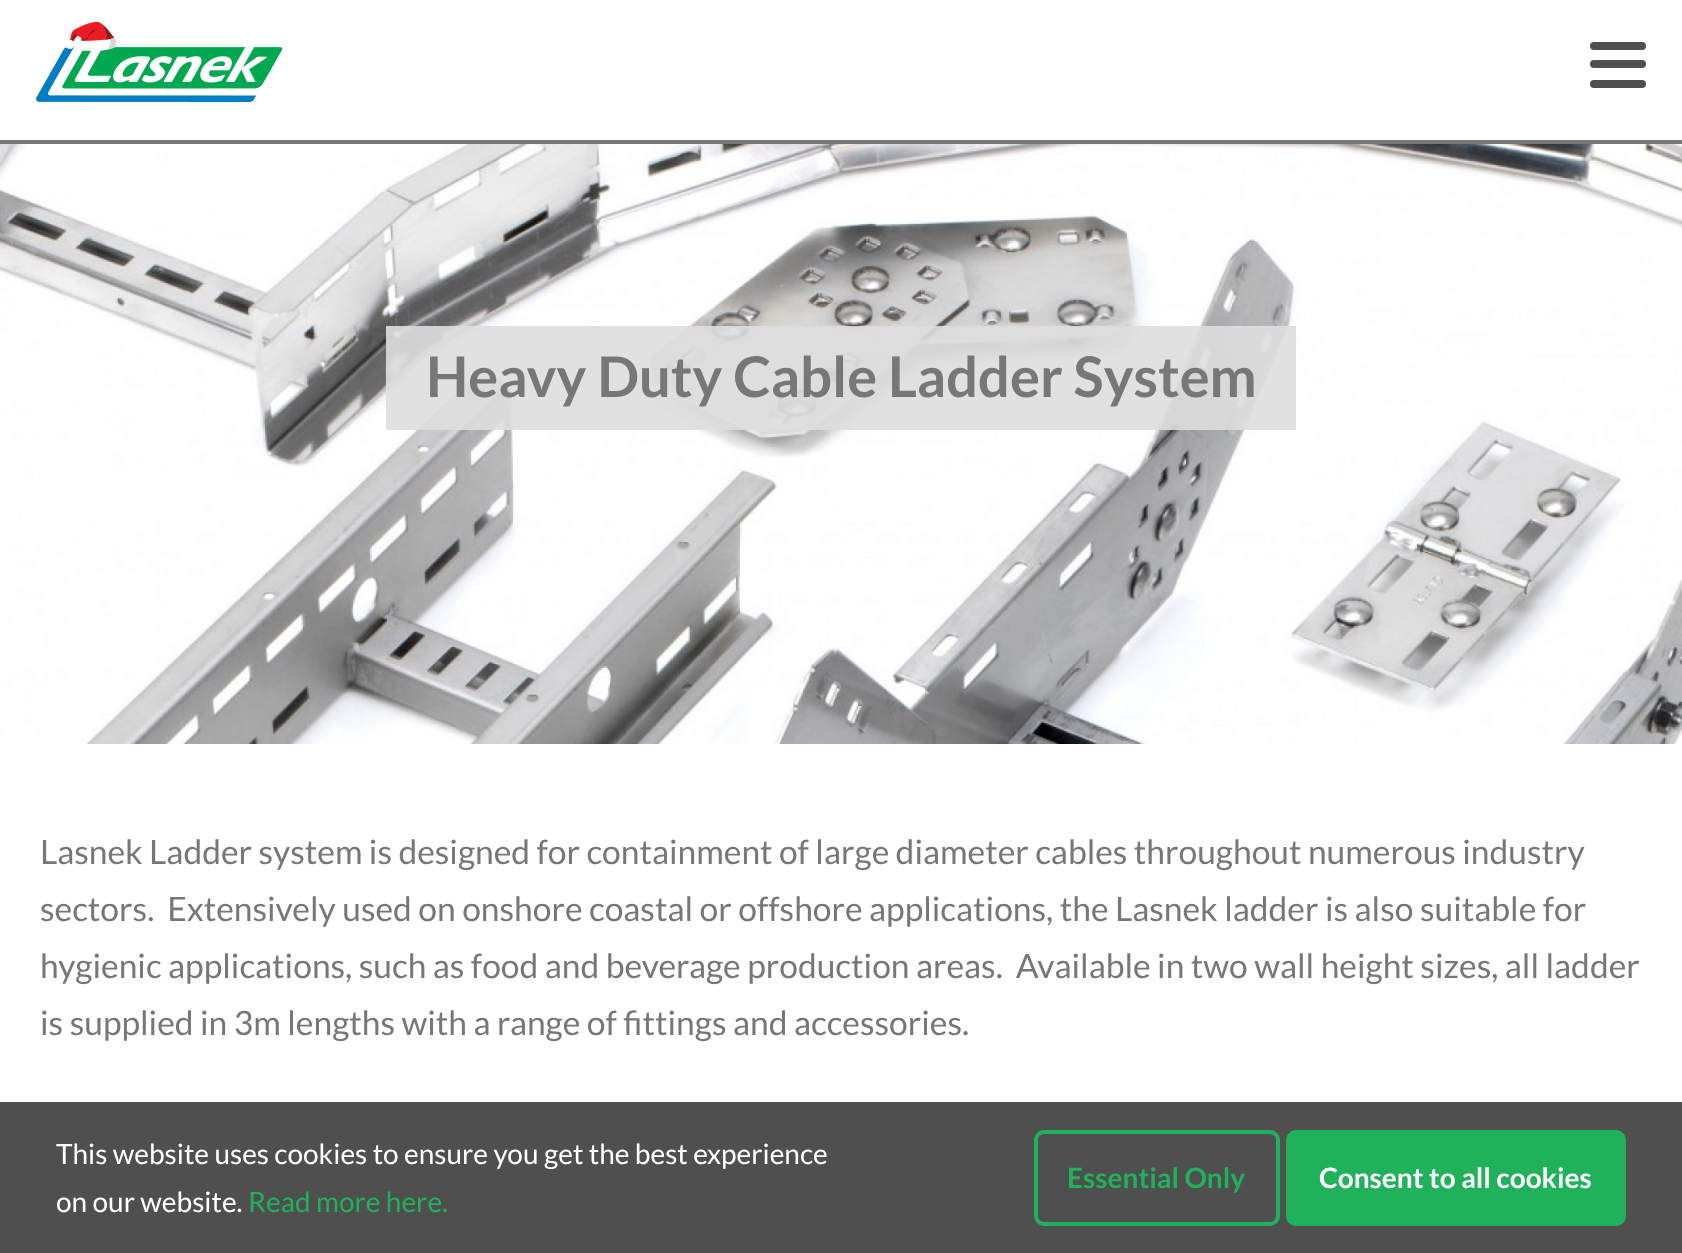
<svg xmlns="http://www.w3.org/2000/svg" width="1682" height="1253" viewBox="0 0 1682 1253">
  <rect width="100%" height="100%" fill="rgb(255,255,255)"/>
  <rect x="0" y="140" width="1682" height="4" fill="rgb(119,119,119)"/>
  <image x="36" y="21" width="247" height="81" href="pic1.png"/>
  <rect x="1590" y="60" width="56" height="8" rx="4" fill="rgb(79,79,79)"/>
  <rect x="1590" y="42" width="56" height="8" rx="4" fill="rgb(79,79,79)"/>
  <rect x="1590" y="80" width="56" height="8" rx="4" fill="rgb(79,79,79)"/>
  <image x="0" y="144" width="1682" height="600" href="pic2.png"/>
  <rect x="386" y="326" width="910" height="104" fill="rgba(222,222,222,0.9)"/>
  <text x="426" y="397" font-family="Lato" font-size="56" font-weight="bold" fill="rgb(119,119,119)">Heavy Duty Cable Ladder System</text>
  <g font-family="Lato" font-size="33.6" fill="rgb(119,119,119)">
    <text xml:space="preserve"><tspan x="40" y="864" word-spacing="-0.1">Lasnek Ladder system is designed for containment of large diameter cables throughout numerous industry</tspan><tspan x="40" y="921">sectors.  Extensively used on onshore coastal or offshore applications, the Lasnek ladder is also suitable for</tspan><tspan x="40" y="978">hygienic applications, such as food and beverage production areas.  Available in two wall height sizes, all ladder</tspan><tspan x="40" y="1035">is supplied in 3m lengths with a range of fittings and accessories.</tspan></text>
  </g>
  <rect x="0" y="1102" width="1682" height="151" fill="rgb(79,79,79)"/>
  <g font-family="Lato" font-size="28" fill="rgb(255,255,255)">
    <text>
      <tspan x="56" y="1164">This website uses cookies to ensure you get the best experience</tspan>
      <tspan x="56" y="1212">on our website.</tspan>
    </text>
  </g>
  <text x="248" y="1212" font-family="Lato" font-size="28" fill="rgb(31,178,90)">Read more here.</text>
  <rect x="1036" y="1132" width="242" height="92" rx="8" fill="none" stroke="rgb(31,178,90)" stroke-width="4"/>
  <text x="1067" y="1188" font-family="Lato" font-size="28" font-weight="bold" fill="rgb(31,178,90)">Essential Only</text>
  <rect x="1288" y="1132" width="336" height="92" rx="8" fill="rgb(31,178,90)" stroke="rgb(31,178,90)" stroke-width="4"/>
  <text x="1319" y="1188" font-family="Lato" font-size="28" font-weight="bold" fill="rgb(255,255,255)">Consent to all cookies</text>
</svg>
